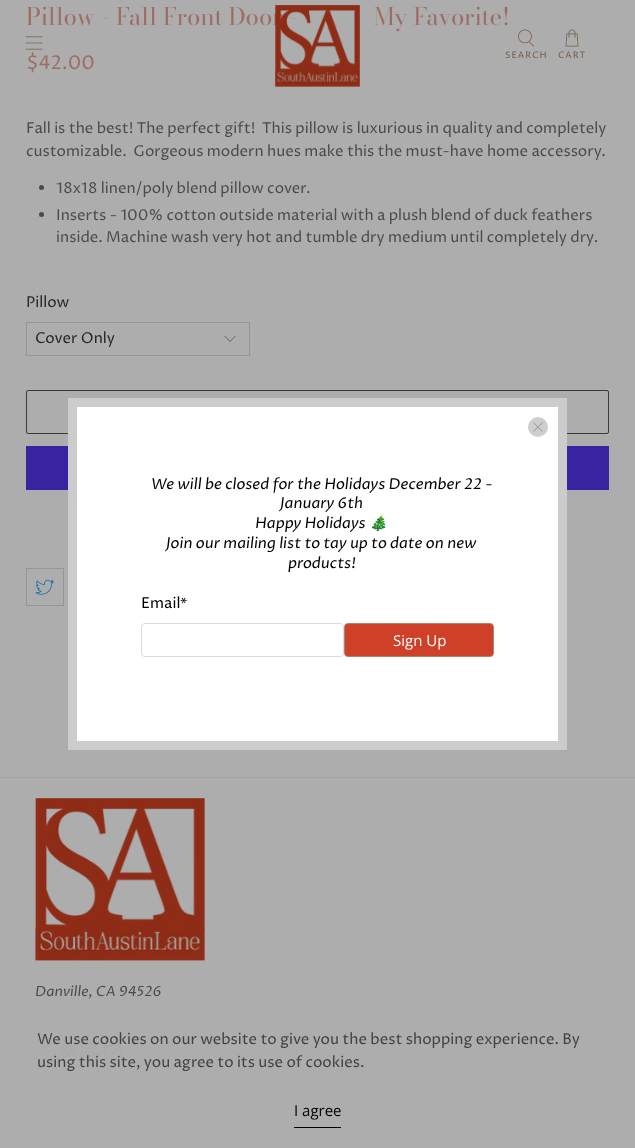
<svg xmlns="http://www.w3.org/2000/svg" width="635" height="1148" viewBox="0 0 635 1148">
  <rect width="100%" height="100%" fill="rgb(173,173,173)"/>
  <g font-family="Bodoni Moda" font-size="24" fill="rgb(157,109,101)">
    <text x="26" y="25">Pillow - Fall Front Door -</text>
    <text x="374" y="25">My Favorite!</text>
  </g>
  <text x="26" y="69" font-family="Proza Libre" font-size="19" fill="rgb(157,109,101)">$42.00</text>
  <g font-family="Proza Libre" font-size="15" fill="rgb(75,75,75)">
    <text xml:space="preserve"><tspan x="26" y="133">Fall is the best! The perfect gift!  This pillow is luxurious in quality and completely</tspan><tspan x="26" y="156">customizable.  Gorgeous modern hues make this the must-have home accessory.</tspan></text>
  </g>
  <circle cx="41.5" cy="187.5" r="2.5" fill="rgb(75,75,75)"/>
  <text x="56" y="193" font-family="Proza Libre" font-size="15" fill="rgb(75,75,75)">18x18 linen/poly blend pillow cover.</text>
  <circle cx="41.5" cy="214.5" r="2.5" fill="rgb(75,75,75)"/>
  <g font-family="Proza Libre" font-size="15" fill="rgb(75,75,75)">
    <text>
      <tspan x="56" y="220">Inserts - 100% cotton outside material with a plush blend of duck feathers</tspan>
      <tspan x="56" y="242">inside. Machine wash very hot and tumble dry medium until completely dry.</tspan>
    </text>
  </g>
  <text x="26" y="307" font-family="Proza Libre" font-size="15" fill="rgb(37,37,37)">Pillow</text>
  <rect x="26.5" y="322.5" width="223" height="33" fill="none" stroke="rgb(149,149,149)"/>
  <text x="35" y="343" font-family="Proza Libre" font-size="15" fill="rgb(37,37,37)">Cover Only</text>
  <image x="224" y="335" width="12" height="7" href="pic1.png"/>
  <rect x="26.5" y="390.5" width="582" height="43" rx="1.5" fill="none" stroke="rgb(58,58,58)"/>
  <rect x="26" y="446" width="583" height="44" fill="rgb(57,35,160)"/>
  <rect x="26.5" y="568.5" width="37" height="37" fill="none" stroke="rgb(149,149,149)"/>
  <image x="35" y="579" width="19" height="16" href="pic2.png"/>
  <image x="25" y="36" width="18" height="14" href="pic3.png"/>
  <image x="275" y="5" width="85" height="82" href="pic4.png"/>
  <image x="518" y="29" width="16" height="18" href="pic5.png"/>
  <text x="505" y="58" font-family="Proza Libre" font-size="9" letter-spacing="1" fill="rgb(115,92,68)">SEARCH</text>
  <image x="565" y="29" width="14" height="18" href="pic6.png"/>
  <text x="558" y="58" font-family="Proza Libre" font-size="9" letter-spacing="1" fill="rgb(115,92,68)">CART</text>
  <rect x="72.5" y="402.5" width="490" height="343" fill="rgb(255,255,255)" stroke="rgb(204,204,204)" stroke-width="9"/>
  <circle cx="538" cy="427" r="10" fill="rgb(206,206,206)"/>
  <image x="533" y="422" width="10" height="10" href="pic7.png"/>
  <g font-family="Proza Libre" font-size="15" font-style="italic" fill="rgb(0,0,0)">
    <text x="151" y="489">We will be closed for the Holidays December 22 -</text>
    <text x="280" y="508">January 6th</text>
    <text x="255" y="528">Happy Holidays</text>
  </g>
  <text x="369" y="528" font-family="Noto Color Emoji" font-size="15" font-style="italic" fill="rgb(0,0,0)">🎄</text>
  <g font-family="Proza Libre" font-size="15" font-style="italic" fill="rgb(0,0,0)">
    <text x="166" y="548">Join our mailing list to tay up to date on new</text>
    <text x="288" y="568">products!</text>
  </g>
  <text x="141" y="608" font-family="Proza Libre" font-size="15" fill="rgb(0,0,0)">Email</text>
  <text x="180" y="608" font-family="Proza Libre" font-size="14" fill="rgb(0,0,0)">*</text>
  <rect x="141.5" y="623.5" width="202" height="33" rx="3.5" fill="none" stroke="rgb(219,219,219)"/>
  <rect x="344.5" y="623.5" width="149" height="33" rx="3.5" fill="rgb(207,64,40)" stroke="rgb(169,136,100)"/>
  <text x="393" y="646" font-family="Open Sans" font-size="15" fill="rgb(255,255,255)">Sign Up</text>
  <rect x="0" y="777" width="635" height="1" fill="rgb(161,161,161)"/>
  <image x="35" y="798" width="170" height="163" href="pic8.png"/>
  <text x="35" y="996" font-family="Proza Libre" font-size="14" font-style="italic" fill="rgb(75,75,75)">Danville, CA 94526</text>
  <image x="39" y="1043" width="10" height="18" href="pic9.png"/>
  <image x="60" y="1043" width="14" height="18" href="pic10.png"/>
  <image x="81" y="1043" width="18" height="18" href="pic11.png"/>
  <image x="104" y="1045" width="18" height="14" href="pic12.png"/>
  <rect x="39" y="1043" width="83" height="18" fill="rgba(173,173,173,0.93)"/>
  <g font-family="Proza Libre" font-size="15" fill="rgb(65,65,65)">
    <text>
      <tspan x="37" y="1044">We use cookies on our website to give you the best shopping experience. By</tspan>
      <tspan x="37" y="1067">using this site, you agree to its use of cookies.</tspan>
    </text>
  </g>
  <rect x="294" y="1127" width="47" height="1" fill="rgb(0,0,0)"/>
  <text x="294" y="1116" font-family="Open Sans" font-size="15" fill="rgb(0,0,0)">I agree</text>
</svg>
